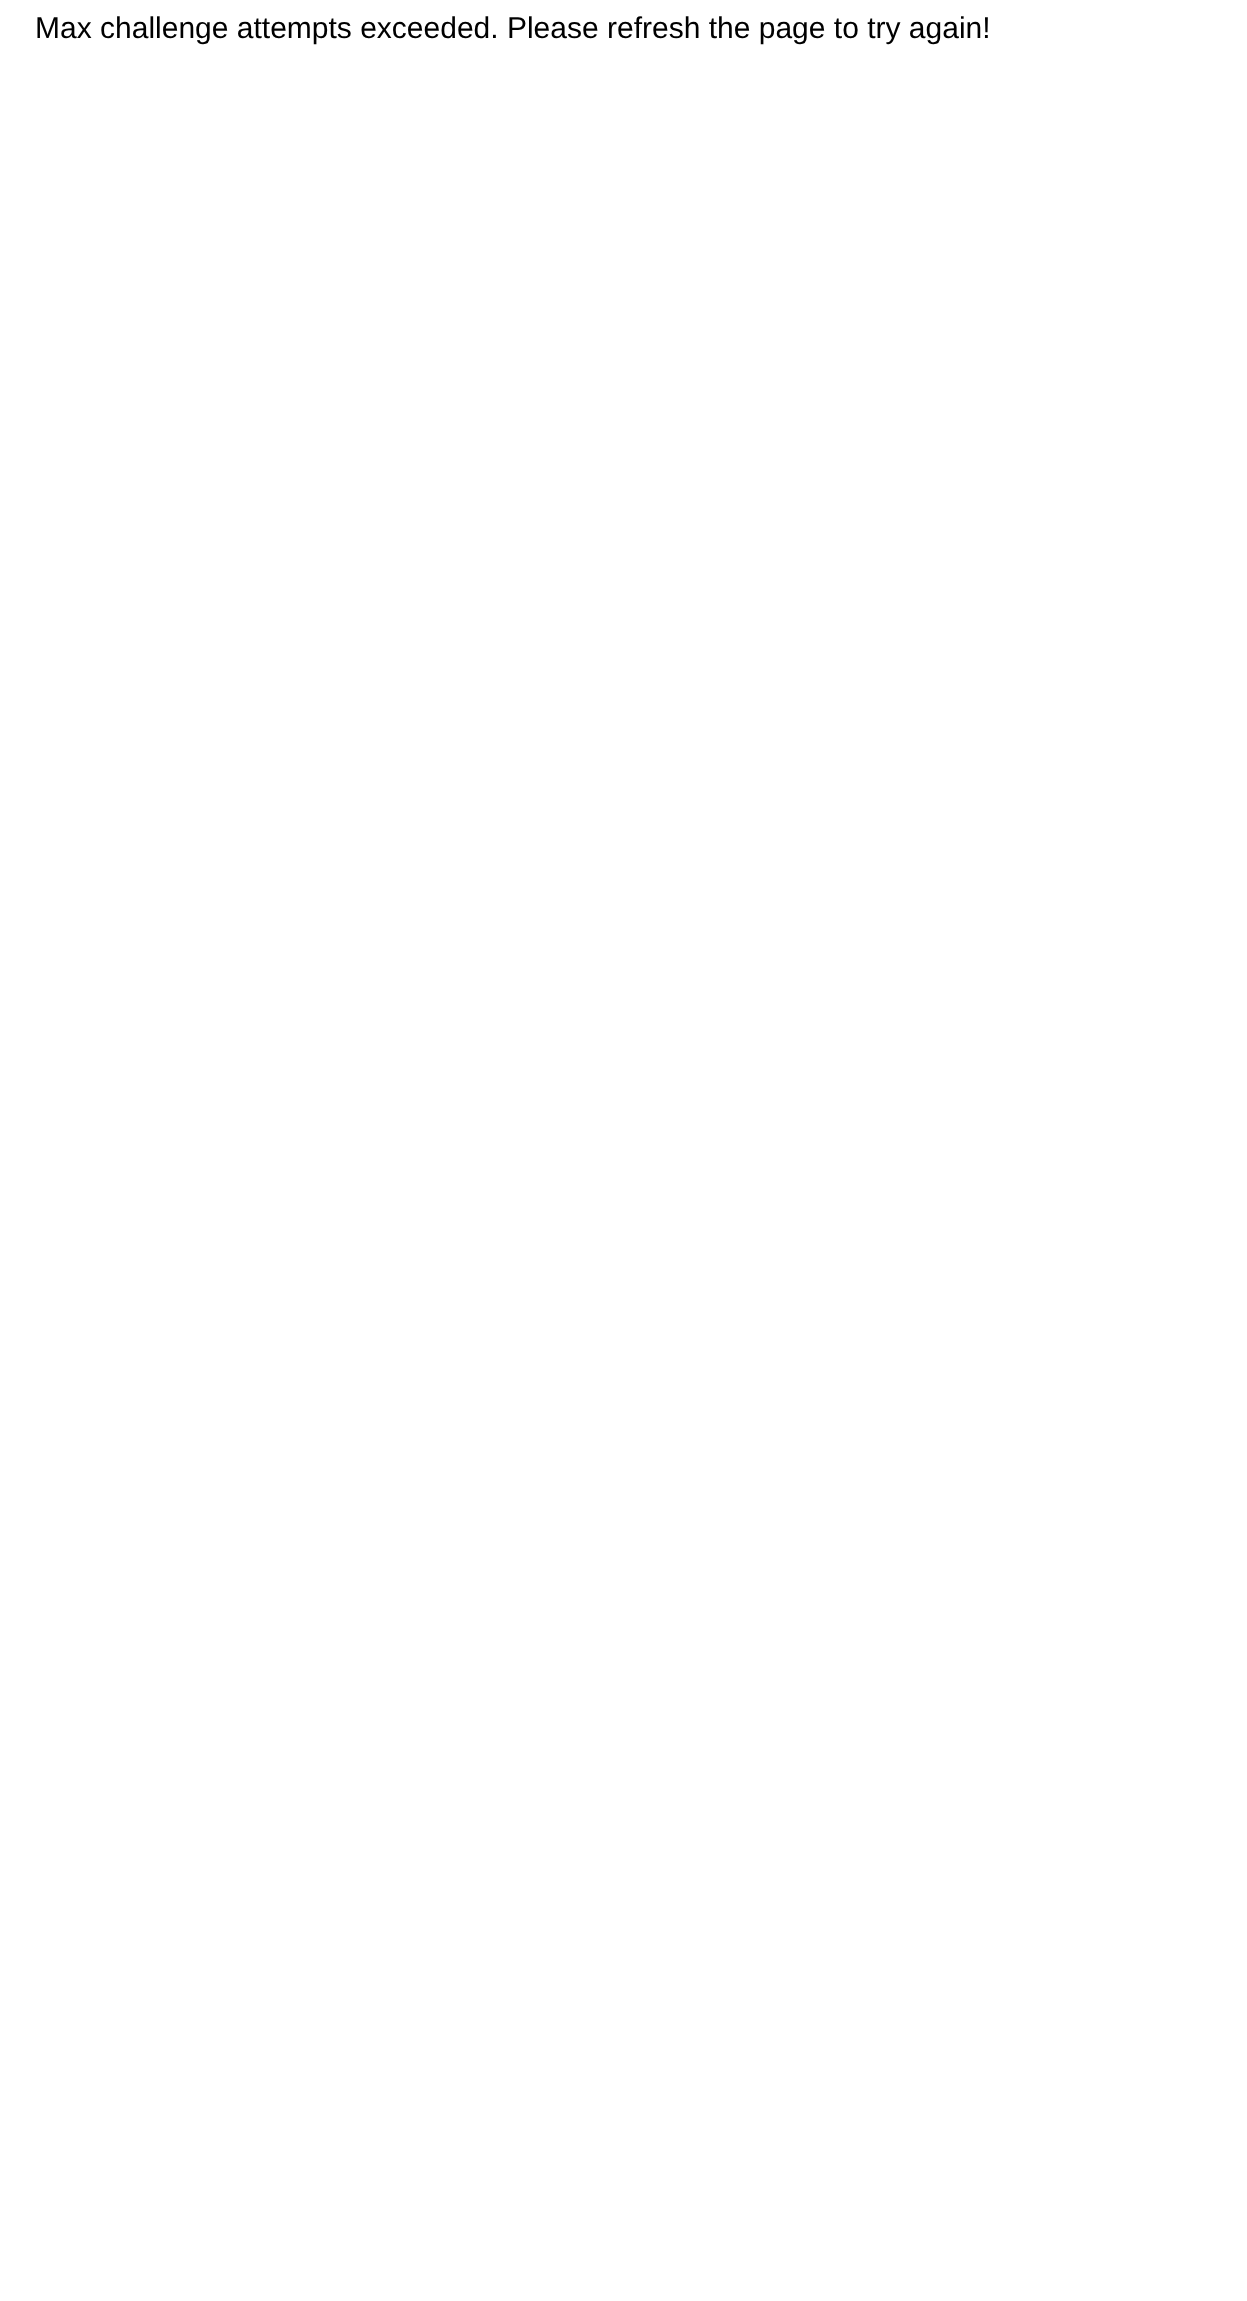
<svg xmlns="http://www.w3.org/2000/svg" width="1247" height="2301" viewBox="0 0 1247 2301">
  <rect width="100%" height="100%" fill="rgb(255,255,255)"/>
  <text x="35" y="38" font-family="Liberation Sans" font-size="30" fill="rgb(0,0,0)">Max challenge attempts exceeded. Please refresh the page to try again!</text>
</svg>
